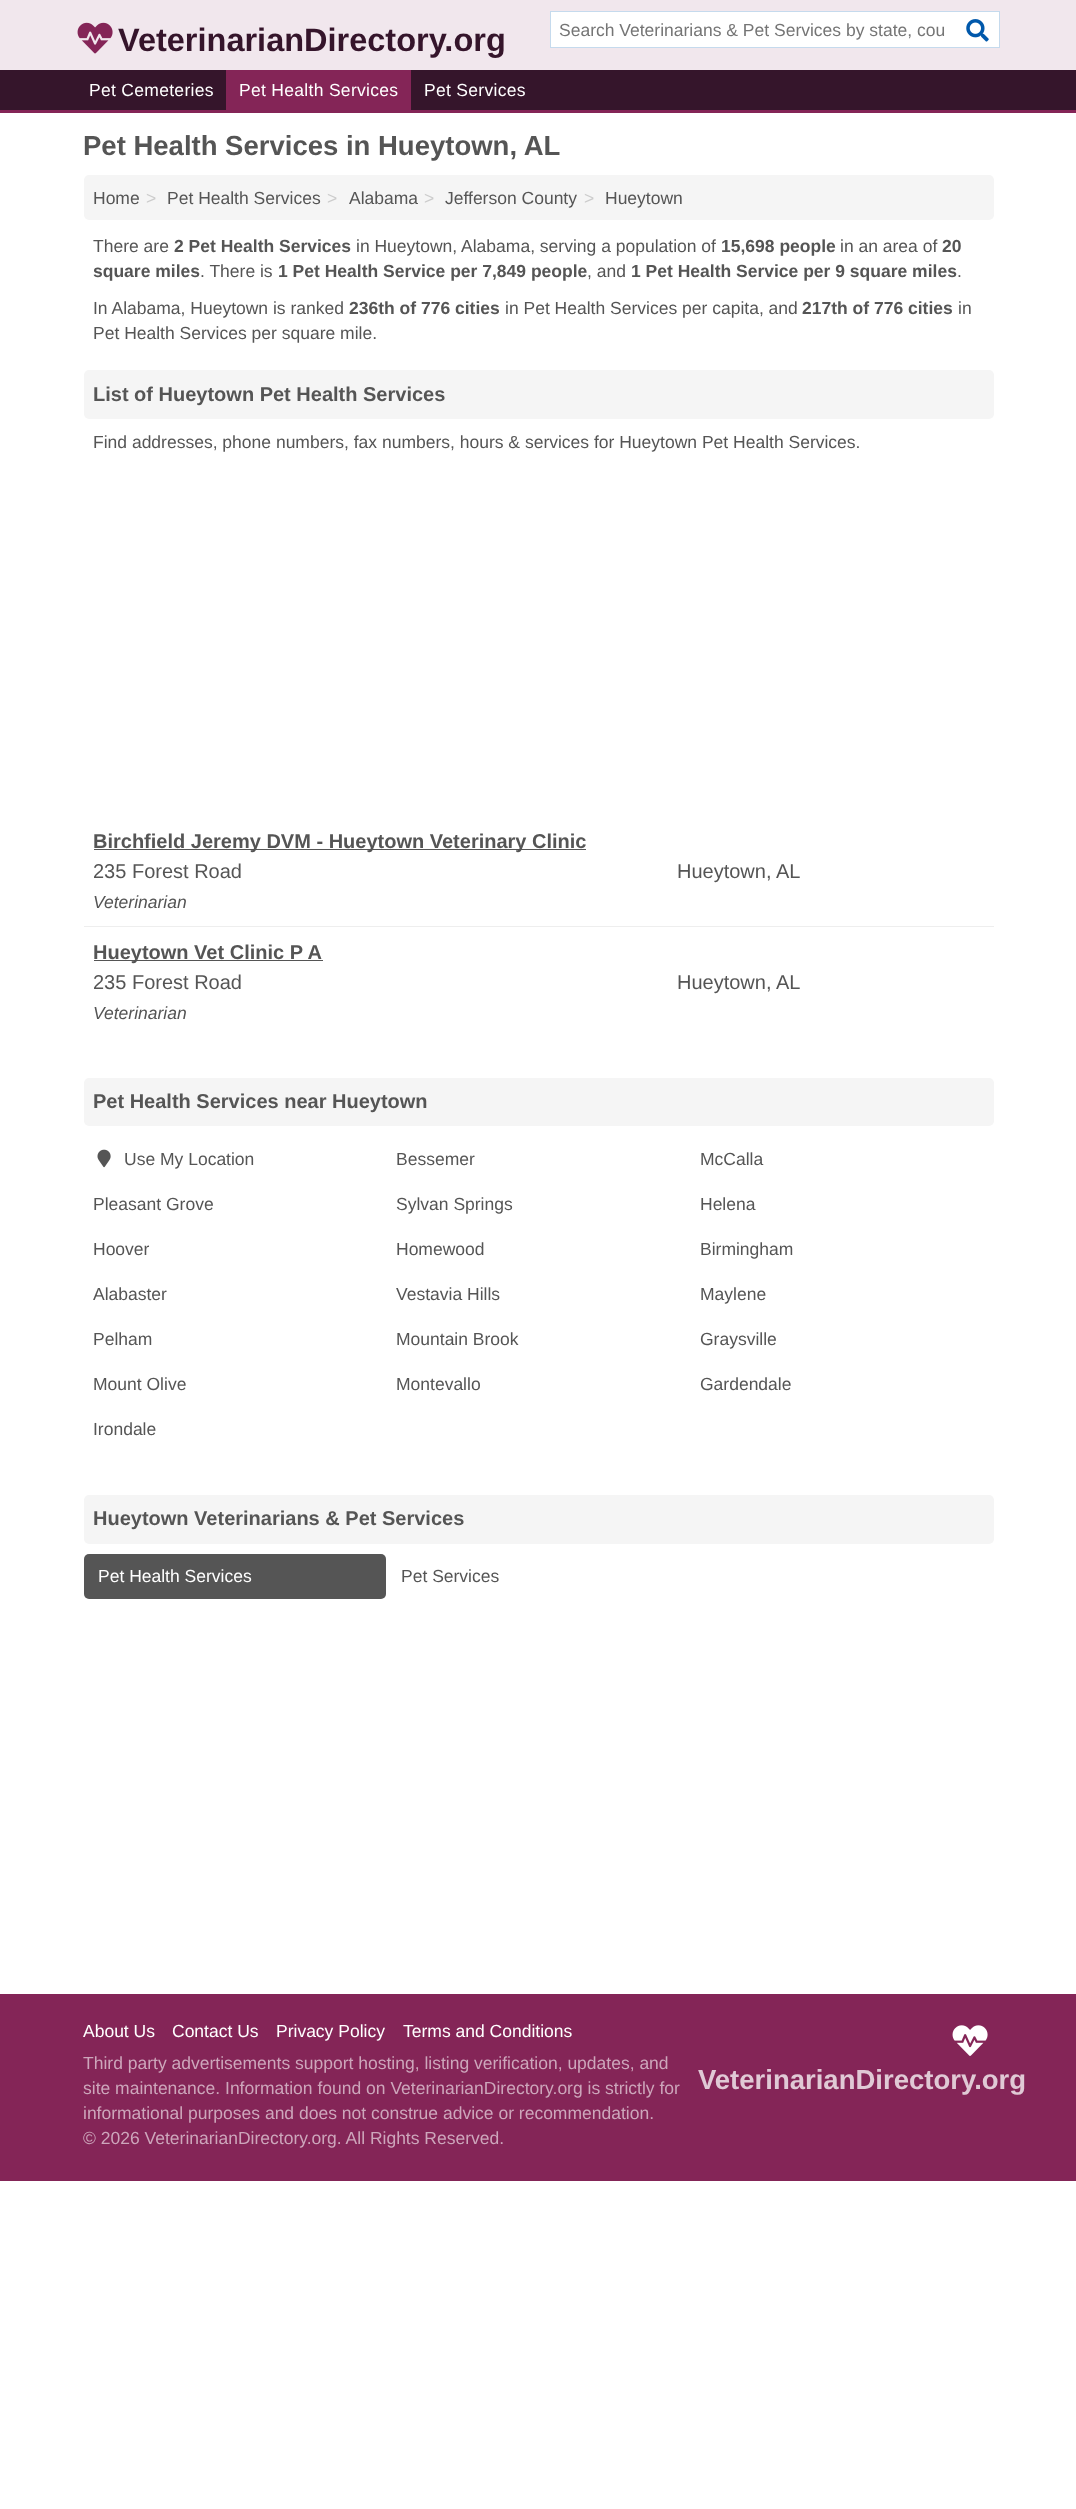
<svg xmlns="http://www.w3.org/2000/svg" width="1076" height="2509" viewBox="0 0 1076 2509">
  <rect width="100%" height="100%" fill="rgb(255,255,255)"/>
  <rect x="0" y="0" width="1076" height="70" fill="rgb(241,231,237)"/>
  <rect x="0" y="110" width="1076" height="3" fill="rgb(132,37,87)"/>
  <image x="77" y="22" width="36" height="32" href="pic1.png"/>
  <text x="118" y="51" font-family="Liberation Sans" font-size="32.5" font-weight="bold" fill="rgb(53,21,43)">VeterinarianDirectory.org</text>
  <rect x="550.5" y="11.5" width="449" height="36" fill="rgb(255,255,255)" stroke="rgb(197,218,237)"/>
  <text x="559" y="36" font-family="Liberation Sans" font-size="17.5" fill="rgb(117,117,117)">Search Veterinarians &amp; Pet Services by state, cou</text>
  <image x="966" y="19" width="23" height="23" href="pic2.png"/>
  <rect x="0" y="70" width="1076" height="40" fill="rgb(53,21,43)"/>
  <text x="89" y="96" font-family="Liberation Sans" font-size="17.5" letter-spacing="0.3" fill="rgb(255,255,255)">Pet Cemeteries</text>
  <rect x="226" y="70" width="185" height="40" fill="rgb(132,37,87)"/>
  <g font-family="Liberation Sans" font-size="17.5" letter-spacing="0.3" fill="rgb(255,255,255)">
    <text x="239" y="96">Pet Health Services</text>
    <text x="424" y="96">Pet Services</text>
  </g>
  <text x="83" y="155" font-family="Liberation Sans" font-size="27.5" font-weight="bold" fill="rgb(85,85,85)">Pet Health Services in Hueytown, AL</text>
  <rect x="84" y="175" width="910" height="45" rx="5" fill="rgb(245,245,245)"/>
  <text x="93" y="204" font-family="Liberation Sans" font-size="17.5" fill="rgb(85,85,85)">Home</text>
  <text x="146" y="204" font-family="Liberation Sans" font-size="17.5" fill="rgb(204,204,204)">&gt;</text>
  <text x="167" y="204" font-family="Liberation Sans" font-size="17.5" fill="rgb(85,85,85)">Pet Health Services</text>
  <text x="327" y="204" font-family="Liberation Sans" font-size="17.5" fill="rgb(204,204,204)">&gt;</text>
  <text x="349" y="204" font-family="Liberation Sans" font-size="17.5" fill="rgb(85,85,85)">Alabama</text>
  <text x="424" y="204" font-family="Liberation Sans" font-size="17.5" fill="rgb(204,204,204)">&gt;</text>
  <text x="445" y="204" font-family="Liberation Sans" font-size="17.5" fill="rgb(85,85,85)">Jefferson County</text>
  <text x="584" y="204" font-family="Liberation Sans" font-size="17.5" fill="rgb(204,204,204)">&gt;</text>
  <g font-family="Liberation Sans" font-size="17.5" fill="rgb(85,85,85)">
    <text x="605" y="204">Hueytown</text>
    <text x="93" y="252">There are</text>
  </g>
  <text x="174" y="252" font-family="Liberation Sans" font-size="17.5" font-weight="bold" fill="rgb(85,85,85)">2 Pet Health Services</text>
  <text x="356" y="252" font-family="Liberation Sans" font-size="17.5" fill="rgb(85,85,85)">in Hueytown, Alabama, serving a population of</text>
  <text x="721" y="252" font-family="Liberation Sans" font-size="17.5" font-weight="bold" fill="rgb(85,85,85)">15,698 people</text>
  <text x="840" y="252" font-family="Liberation Sans" font-size="17.5" fill="rgb(85,85,85)">in an area of</text>
  <g font-family="Liberation Sans" font-size="17.5" font-weight="bold" fill="rgb(85,85,85)">
    <text x="942" y="252">20</text>
    <text x="93" y="277">square miles</text>
  </g>
  <text x="200" y="277" font-family="Liberation Sans" font-size="17.5" fill="rgb(85,85,85)">. There is</text>
  <text x="278" y="277" font-family="Liberation Sans" font-size="17.5" font-weight="bold" fill="rgb(85,85,85)">1 Pet Health Service per 7,849 people</text>
  <text x="587" y="277" font-family="Liberation Sans" font-size="17.5" fill="rgb(85,85,85)">, and</text>
  <text x="631" y="277" font-family="Liberation Sans" font-size="17.5" font-weight="bold" fill="rgb(85,85,85)">1 Pet Health Service per 9 square miles</text>
  <g font-family="Liberation Sans" font-size="17.5" fill="rgb(85,85,85)">
    <text x="957" y="277">.</text>
    <text x="93" y="314">In Alabama, Hueytown is ranked</text>
  </g>
  <text x="349" y="314" font-family="Liberation Sans" font-size="17.5" font-weight="bold" fill="rgb(85,85,85)">236th of 776 cities</text>
  <text x="505" y="314" font-family="Liberation Sans" font-size="17.5" fill="rgb(85,85,85)">in Pet Health Services per capita, and</text>
  <text x="802" y="314" font-family="Liberation Sans" font-size="17.5" font-weight="bold" fill="rgb(85,85,85)">217th of 776 cities</text>
  <g font-family="Liberation Sans" font-size="17.5" fill="rgb(85,85,85)">
    <text x="958" y="314">in</text>
    <text x="93" y="339">Pet Health Services per square mile.</text>
  </g>
  <rect x="84" y="370" width="910" height="49" rx="5" fill="rgb(245,245,245)"/>
  <text x="93" y="401" font-family="Liberation Sans" font-size="20" font-weight="bold" fill="rgb(85,85,85)">List of Hueytown Pet Health Services</text>
  <text x="93" y="448" font-family="Liberation Sans" font-size="17.5" fill="rgb(85,85,85)">Find addresses, phone numbers, fax numbers, hours &amp; services for Hueytown Pet Health Services.</text>
  <rect x="94" y="849" width="492" height="1" fill="rgb(85,85,85)"/>
  <text x="93" y="848" font-family="Liberation Sans" font-size="20" font-weight="bold" fill="rgb(85,85,85)">Birchfield Jeremy DVM - Hueytown Veterinary Clinic</text>
  <g font-family="Liberation Sans" font-size="20" fill="rgb(85,85,85)">
    <text x="93" y="878">235 Forest Road</text>
    <text x="677" y="878">Hueytown,</text>
    <text x="776" y="878">AL</text>
  </g>
  <text x="93" y="908" font-family="Liberation Sans" font-size="17.5" font-style="italic" fill="rgb(85,85,85)">Veterinarian</text>
  <rect x="84" y="926" width="910" height="1" fill="rgb(238,238,238)"/>
  <rect x="94" y="960" width="229" height="1" fill="rgb(85,85,85)"/>
  <text x="93" y="959" font-family="Liberation Sans" font-size="20" font-weight="bold" fill="rgb(85,85,85)">Hueytown Vet Clinic P A</text>
  <g font-family="Liberation Sans" font-size="20" fill="rgb(85,85,85)">
    <text x="93" y="989">235 Forest Road</text>
    <text x="677" y="989">Hueytown,</text>
    <text x="776" y="989">AL</text>
  </g>
  <text x="93" y="1019" font-family="Liberation Sans" font-size="17.5" font-style="italic" fill="rgb(85,85,85)">Veterinarian</text>
  <rect x="84" y="1078" width="910" height="48" rx="5" fill="rgb(245,245,245)"/>
  <text x="93" y="1108" font-family="Liberation Sans" font-size="20" font-weight="bold" fill="rgb(85,85,85)">Pet Health Services near Hueytown</text>
  <image x="97" y="1149" width="14" height="19" href="pic3.png"/>
  <g font-family="Liberation Sans" font-size="17.5" fill="rgb(85,85,85)">
    <text x="124" y="1165">Use My Location</text>
    <text x="396" y="1165">Bessemer</text>
    <text x="700" y="1165">McCalla</text>
    <text x="93" y="1210">Pleasant Grove</text>
    <text x="396" y="1210">Sylvan Springs</text>
    <text x="700" y="1210">Helena</text>
    <text x="93" y="1255">Hoover</text>
    <text x="396" y="1255">Homewood</text>
    <text x="700" y="1255">Birmingham</text>
    <text x="93" y="1300">Alabaster</text>
    <text x="396" y="1300">Vestavia Hills</text>
    <text x="700" y="1300">Maylene</text>
    <text x="93" y="1345">Pelham</text>
    <text x="396" y="1345">Mountain Brook</text>
    <text x="700" y="1345">Graysville</text>
    <text x="93" y="1390">Mount Olive</text>
    <text x="396" y="1390">Montevallo</text>
    <text x="700" y="1390">Gardendale</text>
    <text x="93" y="1435">Irondale</text>
  </g>
  <rect x="84" y="1495" width="910" height="49" rx="5" fill="rgb(245,245,245)"/>
  <text x="93" y="1525" font-family="Liberation Sans" font-size="20" font-weight="bold" fill="rgb(85,85,85)">Hueytown Veterinarians &amp; Pet Services</text>
  <rect x="84" y="1554" width="302" height="45" rx="5" fill="rgb(85,85,85)"/>
  <text x="98" y="1582" font-family="Liberation Sans" font-size="17.5" fill="rgb(255,255,255)">Pet Health Services</text>
  <text x="401" y="1582" font-family="Liberation Sans" font-size="17.5" fill="rgb(85,85,85)">Pet Services</text>
  <rect x="0" y="1994" width="1076" height="187" fill="rgb(132,37,87)"/>
  <g font-family="Liberation Sans" font-size="17.5" fill="rgb(255,255,255)">
    <text x="83" y="2037">About Us</text>
    <text x="172" y="2037">Contact Us</text>
    <text x="276" y="2037">Privacy Policy</text>
    <text x="403" y="2037">Terms and Conditions</text>
  </g>
  <g font-family="Liberation Sans" font-size="17.5" fill="rgb(205,166,187)">
    <text>
      <tspan x="83" y="2069">Third party advertisements support hosting, listing verification, updates, and</tspan>
      <tspan x="83" y="2094">site maintenance. Information found on VeterinarianDirectory.org is strictly for</tspan>
      <tspan x="83" y="2119">informational purposes and does not construe advice or recommendation.</tspan>
      <tspan x="83" y="2144">© 2026 VeterinarianDirectory.org. All Rights Reserved.</tspan>
    </text>
  </g>
  <image x="952" y="2025" width="36" height="31" href="pic4.png"/>
  <text x="698" y="2089" font-family="Liberation Sans" font-size="27.5" font-weight="bold" fill="rgb(224,201,213)">VeterinarianDirectory.org</text>
</svg>
